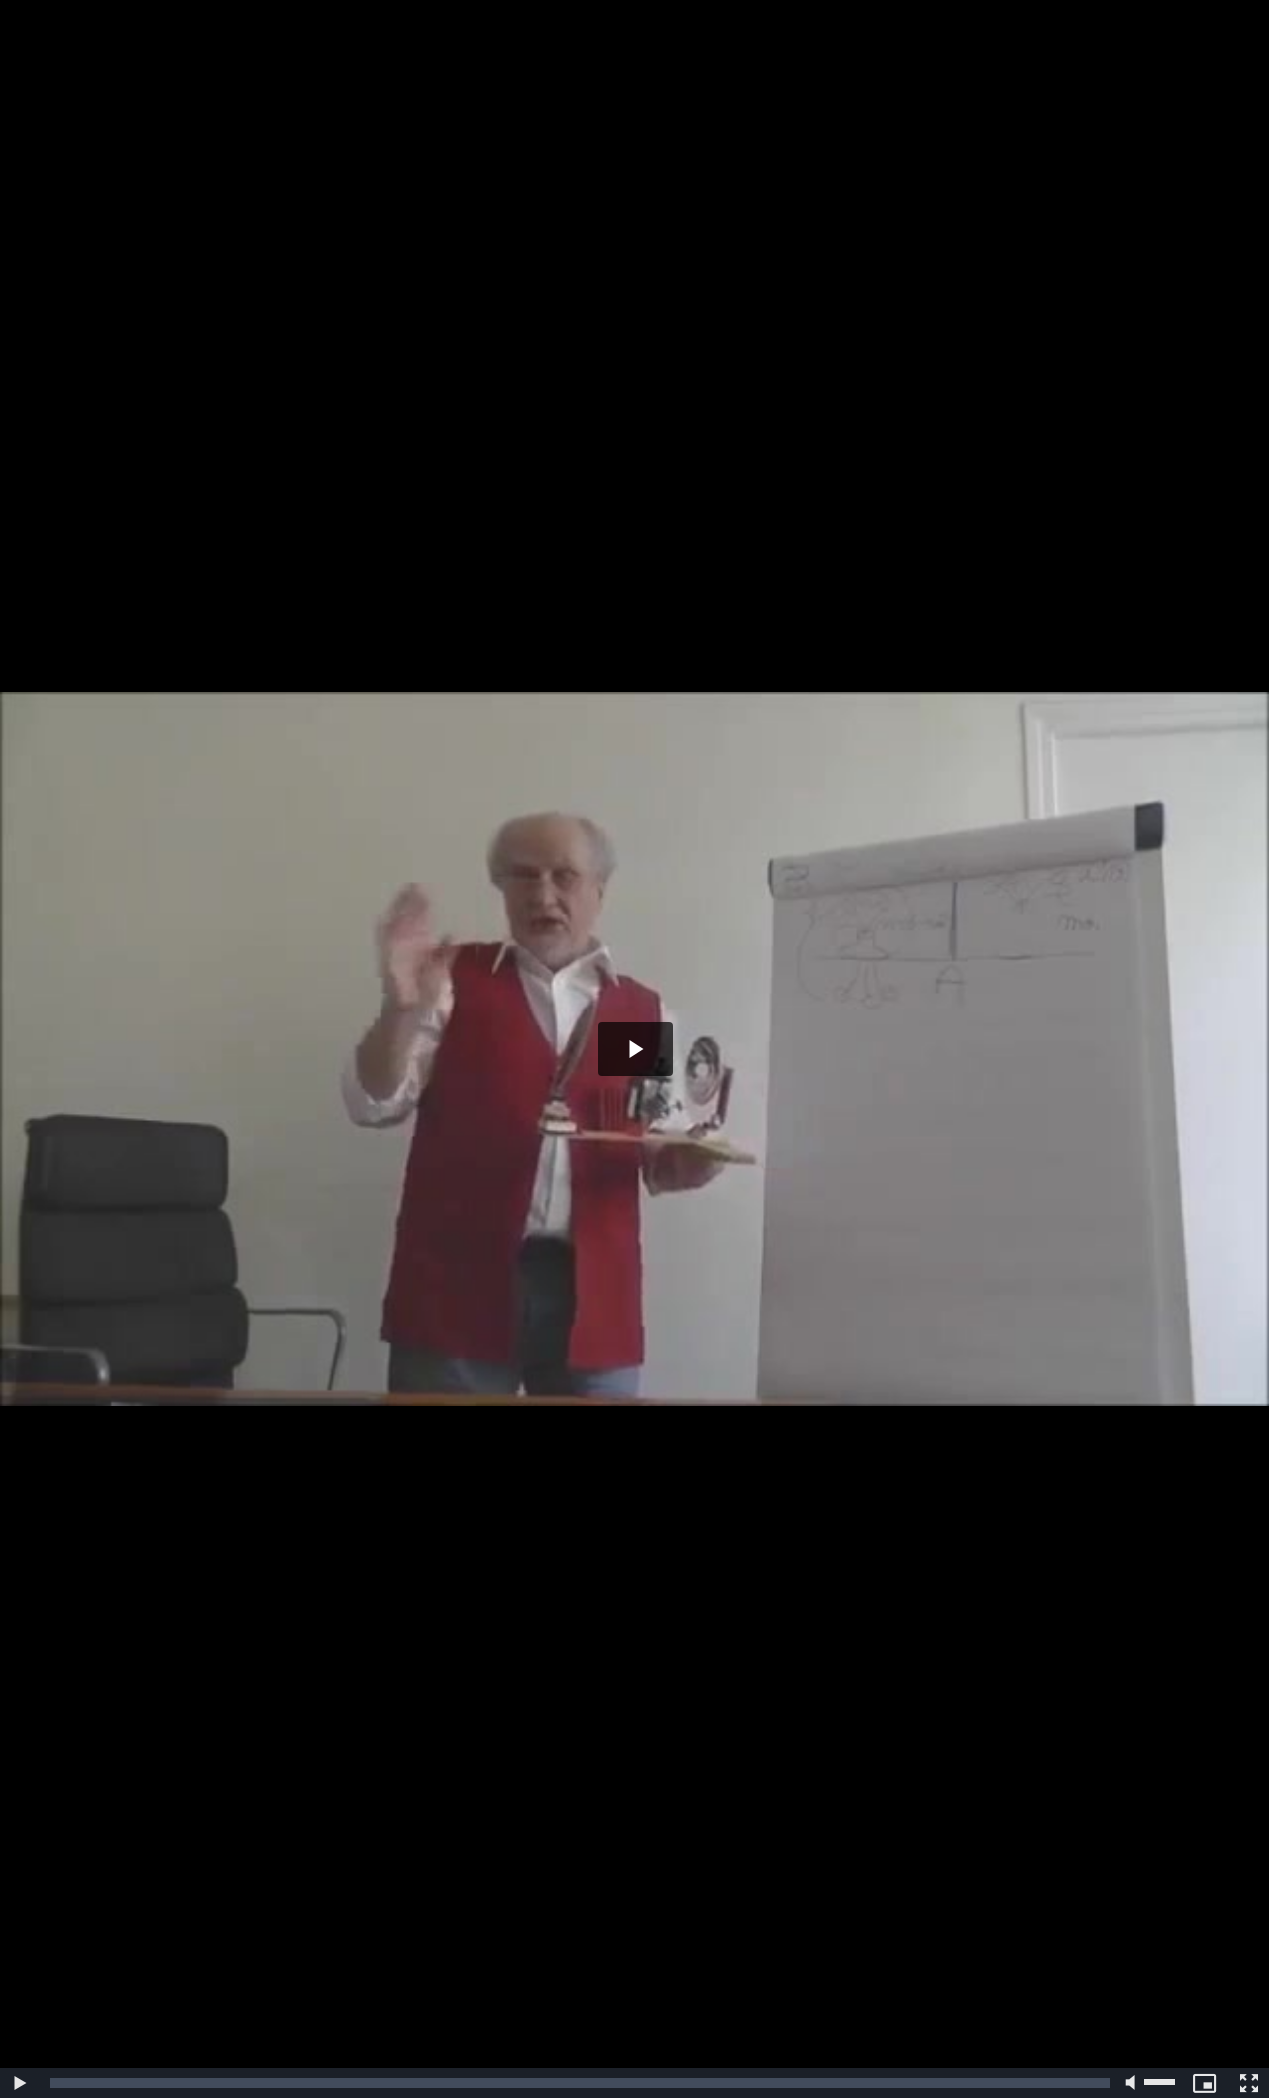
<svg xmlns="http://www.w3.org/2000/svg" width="1269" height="2098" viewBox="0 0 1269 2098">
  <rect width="100%" height="100%" fill="rgb(0,0,0)"/>
  <image x="0" y="692" width="1269" height="714" href="pic1.png"/>
  <rect x="598" y="1022" width="75" height="54" rx="4" fill="rgba(0,0,0,0.7)"/>
  <path d="M629.5 1040V1058L643.5 1049Z" fill="rgb(255,255,255)"/>
  <rect x="0" y="2068" width="1269" height="30" fill="rgb(27,32,40)"/>
  <path d="M14.5 2083V2076L26.5 2083L14.5 2090Z" fill="rgb(230,230,230)"/>
  <rect x="50" y="2078" width="1060" height="10" fill="rgb(66,76,92)"/>
  <image x="1125" y="2075" width="10" height="15" href="pic2.png"/>
  <rect x="1144" y="2079" width="31" height="6" fill="rgb(230,230,230)"/>
  <image x="1193" y="2073" width="24" height="20" href="pic3.png"/>
  <image x="1240" y="2074" width="18" height="19" href="pic4.png"/>
</svg>
